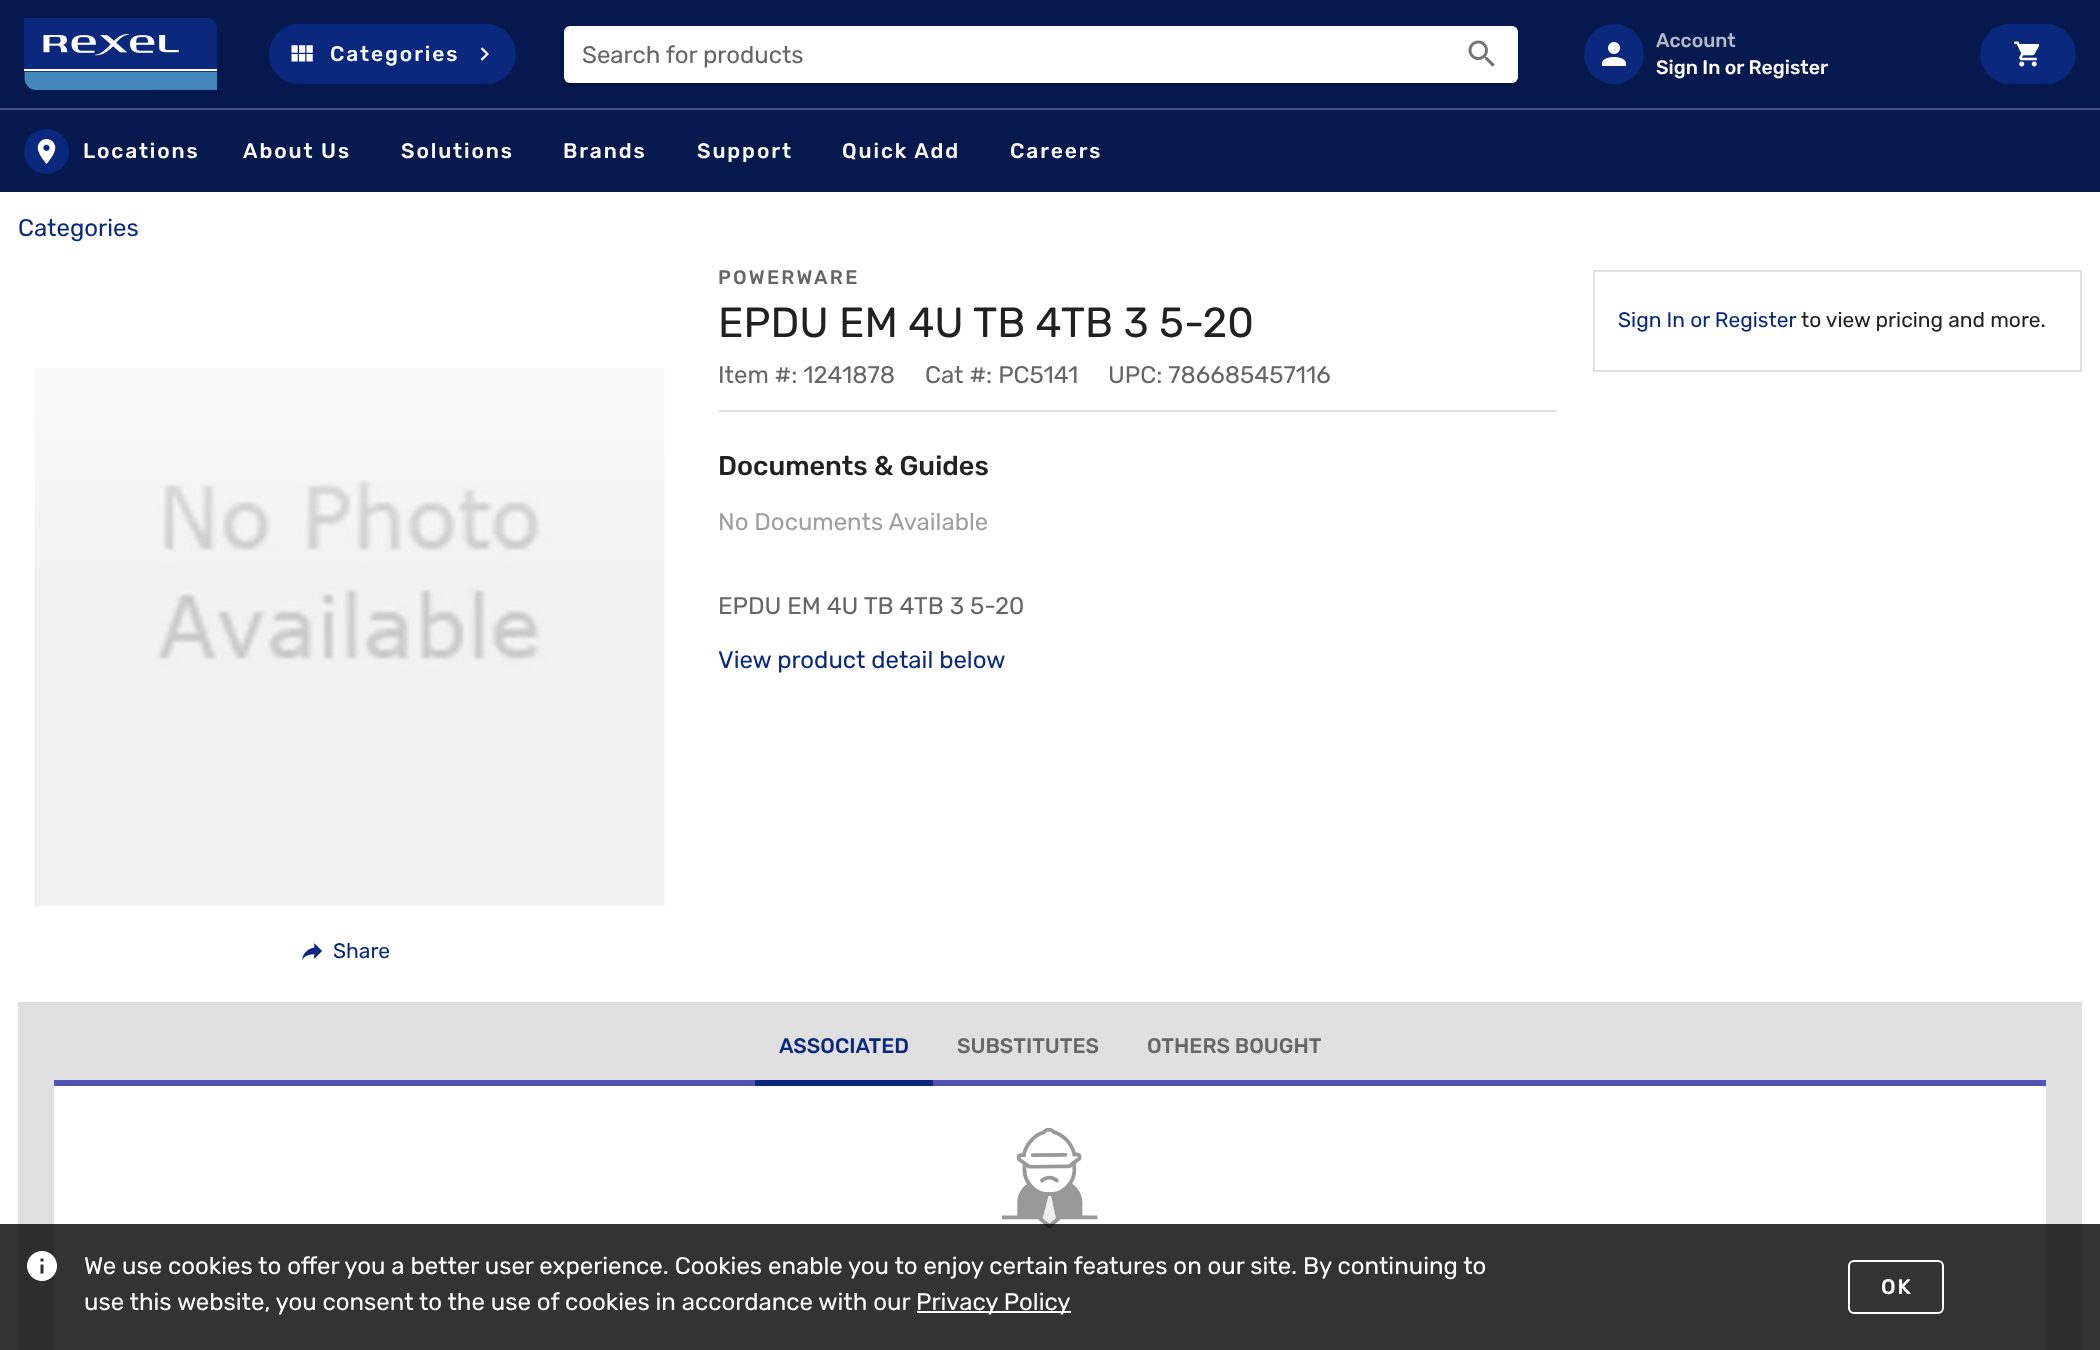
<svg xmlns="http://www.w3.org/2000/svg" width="2100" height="1350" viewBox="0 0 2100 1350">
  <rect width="100%" height="100%" fill="rgb(255,255,255)"/>
  <rect x="0" y="0" width="2100" height="192" fill="rgb(6,25,78)"/>
  <image x="24" y="18" width="194" height="72" href="pic1.png"/>
  <rect x="269" y="24" width="247" height="60" rx="30" fill="rgb(10,40,125)"/>
  <image x="291" y="45" width="22" height="17" href="pic2.png"/>
  <text x="330" y="61" font-family="Rubik" font-size="21" font-weight="500" letter-spacing="1.9" fill="rgb(255,255,255)">Categories</text>
  <image x="480" y="47" width="9" height="14" href="pic3.png"/>
  <rect x="564" y="29" width="954" height="57" rx="6" fill="rgba(0,0,0,0.14)" filter="blur(1.5px)"/>
  <rect x="567" y="33" width="948" height="51" rx="3" fill="rgba(0,0,0,0.2)" filter="blur(1px)"/>
  <rect x="564" y="26" width="954" height="57" rx="6" fill="rgb(255,255,255)"/>
  <text x="582" y="63" font-family="Rubik" font-size="24" fill="rgb(102,102,102)">Search for products</text>
  <image x="1468" y="40" width="27" height="27" href="pic4.png"/>
  <circle cx="1614" cy="54" r="30" fill="rgb(10,40,125)"/>
  <image x="1602" y="42" width="24" height="24" href="pic5.png"/>
  <text x="1656" y="47" font-family="Rubik" font-size="19.5" font-weight="500" fill="rgb(180,186,202)">Account</text>
  <text x="1656" y="74" font-family="Rubik" font-size="19.5" font-weight="500" fill="rgb(255,255,255)">Sign In or Register</text>
  <rect x="1980" y="24" width="96" height="60" rx="30" fill="rgb(10,40,125)"/>
  <image x="2014" y="41" width="26" height="26" href="pic6.png"/>
  <rect x="0" y="108" width="2100" height="2" fill="rgb(66,80,120)"/>
  <circle cx="46.5" cy="151.5" r="22.5" fill="rgb(10,40,125)"/>
  <image x="37" y="139" width="19" height="25" href="pic7.png"/>
  <g font-family="Rubik" font-size="21" font-weight="500" letter-spacing="1.9" fill="rgb(255,255,255)">
    <text x="83" y="158">Locations</text>
    <text x="243" y="158">About Us</text>
    <text x="401" y="158">Solutions</text>
    <text x="563" y="158">Brands</text>
    <text x="697" y="158">Support</text>
    <text x="842" y="158">Quick Add</text>
    <text x="1010" y="158">Careers</text>
  </g>
  <text x="18" y="236" font-family="Rubik" font-size="24" fill="rgb(10,40,125)">Categories</text>
  <text x="718" y="284" font-family="Rubik" font-size="19.5" font-weight="500" letter-spacing="2.25" fill="rgb(102,102,102)">POWERWARE</text>
  <text x="718" y="337" font-family="Rubik" font-size="42" fill="rgb(33,33,33)">EPDU EM 4U TB 4TB 3 5-20</text>
  <g font-family="Rubik" font-size="24" fill="rgb(102,102,102)">
    <text x="718" y="383">Item #: 1241878</text>
    <text x="925" y="383">Cat #: PC5141</text>
    <text x="1108" y="383">UPC: 786685457116</text>
  </g>
  <rect x="719" y="410" width="838" height="2" fill="rgb(224,224,224)"/>
  <text x="718" y="475" font-family="Rubik" font-size="27" font-weight="500" fill="rgb(33,33,33)">Documents &amp; Guides</text>
  <text x="718" y="530" font-family="Rubik" font-size="24" fill="rgb(158,158,158)">No Documents Available</text>
  <text x="718" y="614" font-family="Rubik" font-size="24" fill="rgb(102,102,102)">EPDU EM 4U TB 4TB 3 5-20</text>
  <text x="718" y="668" font-family="Rubik" font-size="24" fill="rgb(10,40,125)">View product detail below</text>
  <rect x="1594" y="271" width="487" height="100" fill="none" stroke="rgb(224,224,224)" stroke-width="2"/>
  <text x="1618" y="327" font-family="Rubik" font-size="21" fill="rgb(10,40,125)">Sign In or Register</text>
  <text x="1801" y="327" font-family="Rubik" font-size="21" fill="rgb(33,33,33)">to view pricing and more.</text>
  <image x="34" y="368" width="631" height="538" href="pic8.png"/>
  <image x="301" y="943" width="21" height="17" href="pic9.png"/>
  <text x="333" y="958" font-family="Rubik" font-size="21" fill="rgb(10,40,125)">Share</text>
  <rect x="18" y="1002" width="2064" height="348" fill="rgb(224,224,224)"/>
  <rect x="54" y="1080" width="1992" height="6" fill="rgb(80,85,179)"/>
  <rect x="755" y="1080" width="178" height="6" fill="rgb(10,40,125)"/>
  <text x="779" y="1053" font-family="Rubik" font-size="21" font-weight="500" fill="rgb(10,40,125)">ASSOCIATED</text>
  <g font-family="Rubik" font-size="21" font-weight="500" fill="rgb(102,102,102)">
    <text x="957" y="1053">SUBSTITUTES</text>
    <text x="1147" y="1053">OTHERS BOUGHT</text>
  </g>
  <rect x="54" y="1086" width="1992" height="264" fill="rgb(255,255,255)"/>
  <image x="1002" y="1128" width="96" height="101" href="pic10.png"/>
  <rect x="0" y="1224" width="2100" height="126" fill="rgba(0,0,0,0.8)"/>
  <image x="27" y="1251" width="30" height="30" href="pic11.png"/>
  <g font-family="Rubik" font-size="24" fill="rgb(255,255,255)">
    <text>
      <tspan x="84" y="1274">We use cookies to offer you a better user experience. Cookies enable you to enjoy certain features on our site. By continuing to</tspan>
      <tspan x="84" y="1310">use this website, you consent to the use of cookies in accordance with our</tspan>
    </text>
  </g>
  <rect x="917" y="1311" width="154" height="2" fill="rgb(255,255,255)"/>
  <text x="916" y="1310" font-family="Rubik" font-size="24" fill="rgb(255,255,255)">Privacy Policy</text>
  <rect x="1849" y="1261" width="94" height="52" rx="5" fill="none" stroke="rgb(255,255,255)" stroke-width="2"/>
  <text x="1881" y="1294" font-family="Rubik" font-size="21" font-weight="500" letter-spacing="1.9" fill="rgb(255,255,255)">OK</text>
</svg>
